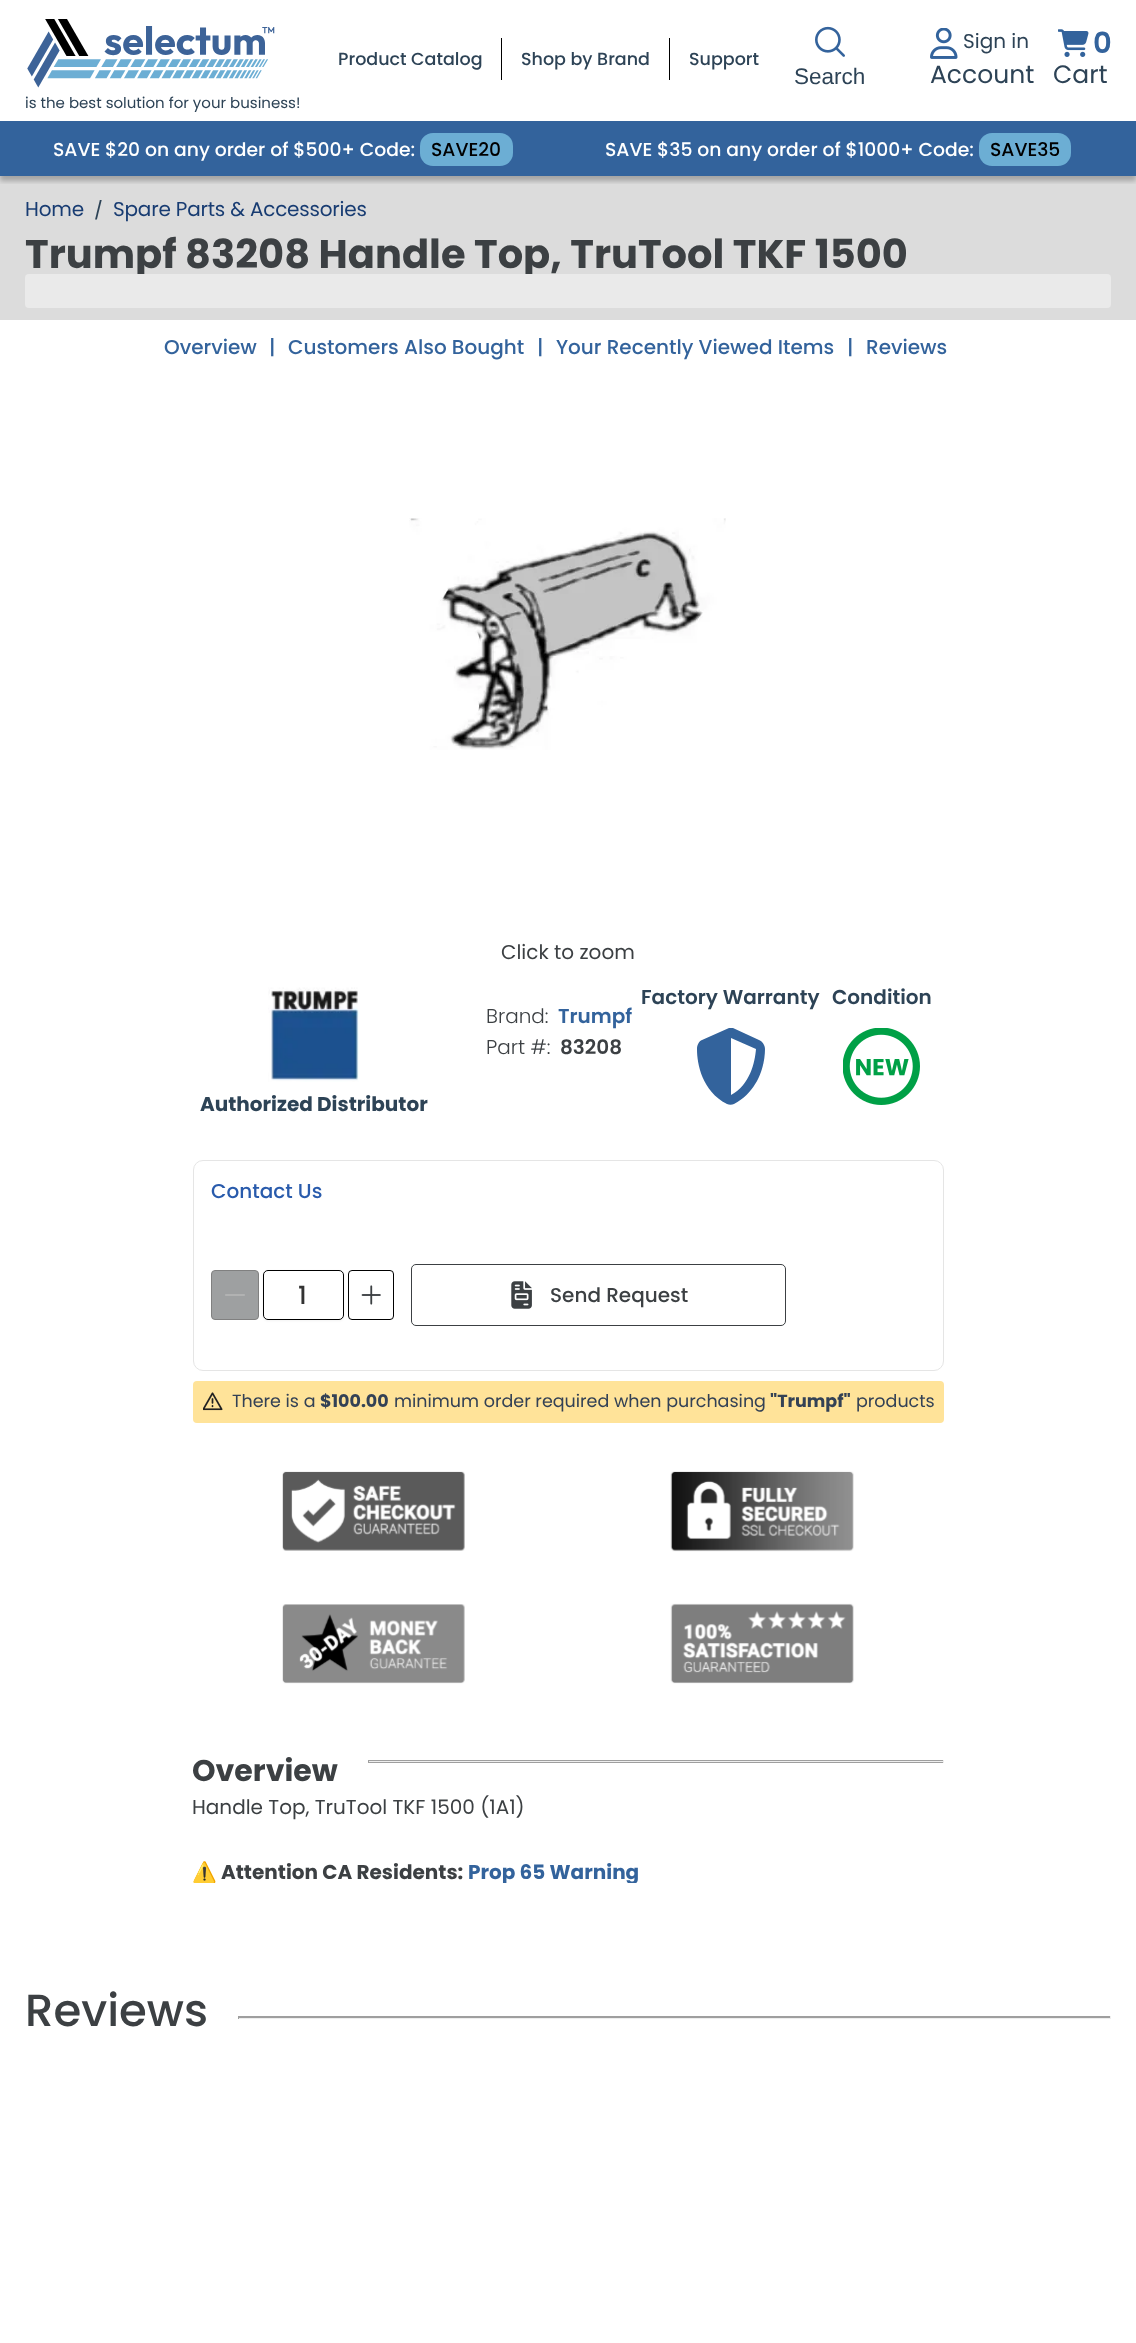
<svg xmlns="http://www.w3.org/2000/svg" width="1136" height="2343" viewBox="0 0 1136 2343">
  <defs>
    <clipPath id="clip1"><rect x="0" y="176" width="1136" height="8"/></clipPath>
    <clipPath id="clip2"><rect x="958" y="33" width="72" height="22"/></clipPath>
    <clipPath id="clip3"><rect x="94" y="200" width="10" height="23"/></clipPath>
    <clipPath id="clip4"><rect x="193" y="1710" width="751" height="173"/></clipPath>
  </defs>
  <rect width="100%" height="100%" fill="rgb(255,255,255)"/>
  <rect x="0" y="176" width="1136" height="144" fill="rgb(220,220,220)"/>
  <g clip-path="url(#clip1)">
    <rect x="0" y="5" width="1136" height="176" fill="rgba(0,0,0,0.25)" filter="blur(2.5px)"/>
  </g>
  <rect x="501" y="38" width="1" height="42" fill="rgb(0,0,0)"/>
  <text x="338" y="65" font-family="Poppins" font-size="17.5" font-weight="500" fill="rgb(45,67,86)">Product Catalog</text>
  <rect x="669" y="38" width="1" height="42" fill="rgb(0,0,0)"/>
  <g font-family="Poppins" font-size="17.5" font-weight="500" fill="rgb(45,67,86)">
    <text x="521" y="65">Shop by Brand</text>
    <text x="689" y="65">Support</text>
  </g>
  <image x="815" y="26" width="30" height="31" href="pic1.png"/>
  <text x="794" y="84" font-family="Liberation Sans" font-size="22.5" fill="rgb(45,67,86)">Search</text>
  <image x="930" y="28" width="28" height="31" href="pic2.png"/>
  <g clip-path="url(#clip2)">
    <text x="963" y="48" font-family="Poppins" font-size="20" fill="rgb(45,67,86)">Sign in</text>
  </g>
  <text x="930" y="83" font-family="Poppins" font-size="25" fill="rgb(45,67,86)">Account</text>
  <image x="1058" y="29" width="31" height="28" href="pic3.png"/>
  <text x="1093" y="53" font-family="Poppins" font-size="29" font-weight="600" fill="rgb(51,99,156)">0</text>
  <text x="1053" y="83" font-family="Poppins" font-size="25" fill="rgb(45,67,86)">Cart</text>
  <image x="27" y="19" width="248" height="69" href="pic4.png"/>
  <text x="25" y="108" font-family="Poppins" font-size="15" fill="rgb(45,67,86)">is the best solution for your business!</text>
  <rect x="0" y="121" width="1136" height="55" fill="rgb(51,99,156)"/>
  <text x="53" y="156" font-family="Poppins" font-size="18.75" font-weight="500" fill="rgb(255,255,255)">SAVE $20 on any order of $500+ Code:</text>
  <rect x="420" y="133" width="93" height="33" rx="13" fill="rgb(108,174,212)"/>
  <text x="431" y="156" font-family="Poppins" font-size="18.75" font-weight="500" fill="rgb(0,0,0)">SAVE20</text>
  <text x="605" y="156" font-family="Poppins" font-size="18.75" font-weight="500" fill="rgb(255,255,255)">SAVE $35 on any order of $1000+ Code:</text>
  <rect x="979" y="133" width="92" height="33" rx="13" fill="rgb(108,174,212)"/>
  <text x="990" y="156" font-family="Poppins" font-size="18.75" font-weight="500" fill="rgb(0,0,0)">SAVE35</text>
  <text x="25" y="216" font-family="Poppins" font-size="20" letter-spacing="-0.2" fill="rgb(24,60,114)">Home</text>
  <g clip-path="url(#clip3)">
    <text x="94" y="216" font-family="Poppins" font-size="20" letter-spacing="-0.2" fill="rgb(45,67,86)">/</text>
  </g>
  <text x="113" y="216" font-family="Poppins" font-size="20" letter-spacing="-0.2" fill="rgb(24,60,114)">Spare Parts &amp; Accessories</text>
  <text x="25" y="268" font-family="Poppins" font-size="40" font-weight="bold" fill="rgb(60,64,67)">Trumpf 83208 Handle Top, TruTool TKF 1500</text>
  <rect x="25" y="274" width="1086" height="34" rx="4" fill="rgb(234,234,234)"/>
  <g font-family="Poppins" font-size="20" font-weight="500" fill="rgb(51,99,156)">
    <text x="164" y="354">Overview</text>
    <text x="269" y="354">|</text>
    <text x="288" y="354">Customers Also Bought</text>
    <text x="537" y="354">|</text>
    <text x="556" y="354">Your Recently Viewed Items</text>
    <text x="847" y="354">|</text>
    <text x="866" y="354">Reviews</text>
  </g>
  <image x="409" y="518" width="317" height="232" href="pic5.png"/>
  <text x="501" y="959" font-family="Poppins" font-size="20" fill="rgb(60,64,67)">Click to zoom</text>
  <text x="641" y="1004" font-family="Poppins" font-size="20" font-weight="600" fill="rgb(45,67,86)">Factory Warranty</text>
  <path d="M731 1028H733L759 1040C762 1041 765 1045 765 1049C765 1064 759 1091 734 1104C732 1105 729 1105 727 1104C702 1091 697 1064 697 1049C697 1045 699 1041 702 1040L729 1028ZM731 1038V1095C750 1085 755 1062 756 1049Z" fill="rgb(51,99,156)"/>
  <text x="832" y="1004" font-family="Poppins" font-size="20" font-weight="600" fill="rgb(45,67,86)">Condition</text>
  <image x="843" y="1028" width="77" height="77" href="pic6.png"/>
  <text x="486" y="1023" font-family="Poppins" font-size="20" font-weight="300" fill="rgb(60,64,67)">Brand:</text>
  <text x="558" y="1023" font-family="Poppins" font-size="20" font-weight="600" fill="rgb(51,99,156)">Trumpf</text>
  <text x="486" y="1054" font-family="Poppins" font-size="20" font-weight="300" fill="rgb(60,64,67)">Part #:</text>
  <text x="560" y="1054" font-family="Poppins" font-size="20" font-weight="600" fill="rgb(60,64,67)">83208</text>
  <image x="268" y="987" width="91" height="95" href="pic7.png"/>
  <text x="200" y="1111" font-family="Poppins" font-size="20" font-weight="bold" fill="rgb(45,67,86)">Authorized Distributor</text>
  <rect x="193.5" y="1160.5" width="750" height="210" rx="9.5" fill="none" stroke="rgb(229,229,229)"/>
  <text x="211" y="1198" font-family="Poppins" font-size="20" font-weight="500" fill="rgb(41,91,172)">Contact Us</text>
  <rect x="211.5" y="1270.5" width="47" height="49" rx="3.5" fill="rgb(158,160,161)" stroke="rgb(128,128,128)"/>
  <image x="225" y="1294" width="20" height="2" href="pic8.png"/>
  <rect x="263" y="1271" width="81" height="50" rx="5" fill="rgba(18,18,23,0.05)" filter="blur(1px)"/>
  <rect x="263.5" y="1270.5" width="80" height="49" rx="4.5" fill="rgb(255,255,255)" stroke="rgb(0,0,0)"/>
  <text x="298" y="1304" font-family="Poppins" font-size="25" font-weight="500" fill="rgb(51,51,51)">1</text>
  <rect x="348.5" y="1270.5" width="45" height="49" rx="3.5" fill="none" stroke="rgb(0,0,0)"/>
  <image x="361" y="1285" width="20" height="20" href="pic9.png"/>
  <rect x="411.5" y="1264.5" width="374" height="61" rx="4.5" fill="none" stroke="rgb(60,64,67)"/>
  <image x="511" y="1281" width="21" height="28" href="pic10.png"/>
  <text x="550" y="1302" font-family="Poppins" font-size="20" font-weight="500" fill="rgb(60,64,67)">Send Request</text>
  <rect x="193" y="1381" width="751" height="42" rx="4" fill="rgb(255,227,153)"/>
  <image x="203" y="1392" width="20" height="19" href="pic11.png"/>
  <text x="232" y="1407" font-family="Poppins" font-size="17.5" fill="rgb(51,65,85)">There is a</text>
  <text x="320" y="1407" font-family="Poppins" font-size="17.5" font-weight="bold" fill="rgb(51,65,85)">$100.00</text>
  <text x="394" y="1407" font-family="Poppins" font-size="17.5" fill="rgb(51,65,85)">minimum order required when purchasing</text>
  <text x="770" y="1407" font-family="Poppins" font-size="17.5" font-weight="bold" fill="rgb(51,65,85)">"Trumpf"</text>
  <text x="856" y="1407" font-family="Poppins" font-size="17.5" fill="rgb(51,65,85)">products</text>
  <image x="282" y="1471" width="183" height="80" href="pic12.png"/>
  <image x="670" y="1471" width="184" height="81" href="pic13.png"/>
  <image x="282" y="1604" width="183" height="80" href="pic14.png"/>
  <image x="670" y="1603" width="184" height="81" href="pic15.png"/>
  <text x="192" y="1781" font-family="Poppins" font-size="30" font-weight="bold" fill="rgb(60,64,67)">Overview</text>
  <rect x="368" y="1760" width="576" height="3" fill="rgb(159,159,159)"/>
  <rect x="943" y="1760" width="1" height="3" fill="rgb(238,238,238)"/>
  <rect x="368" y="1761" width="576" height="1" fill="rgb(238,238,238)"/>
  <rect x="368" y="1760" width="1" height="3" fill="rgb(159,159,159)"/>
  <text x="192" y="1814" font-family="Poppins" font-size="20" fill="rgb(60,64,67)">Handle Top, TruTool TKF 1500 (1A1)</text>
  <g clip-path="url(#clip4)">
    <text x="192" y="1879" font-family="Noto Color Emoji" font-size="20" font-weight="bold" fill="rgb(60,64,67)">⚠️</text>
  </g>
  <text x="221" y="1879" font-family="Poppins" font-size="20" font-weight="bold" fill="rgb(60,64,67)">Attention CA Residents:</text>
  <g clip-path="url(#clip4)">
    <text x="468" y="1879" font-family="Poppins" font-size="20" font-weight="bold" fill="rgb(51,99,156)">Prop 65 Warning</text>
  </g>
  <text x="25" y="2026" font-family="Poppins" font-size="45" font-weight="500" fill="rgb(60,64,67)">Reviews</text>
  <rect x="238" y="2016" width="873" height="2" fill="rgb(159,159,159)"/>
  <rect x="1110" y="2016" width="1" height="3" fill="rgb(238,238,238)"/>
  <rect x="238" y="2018" width="873" height="1" fill="rgb(238,238,238)"/>
  <rect x="238" y="2016" width="1" height="3" fill="rgb(159,159,159)"/>
</svg>
